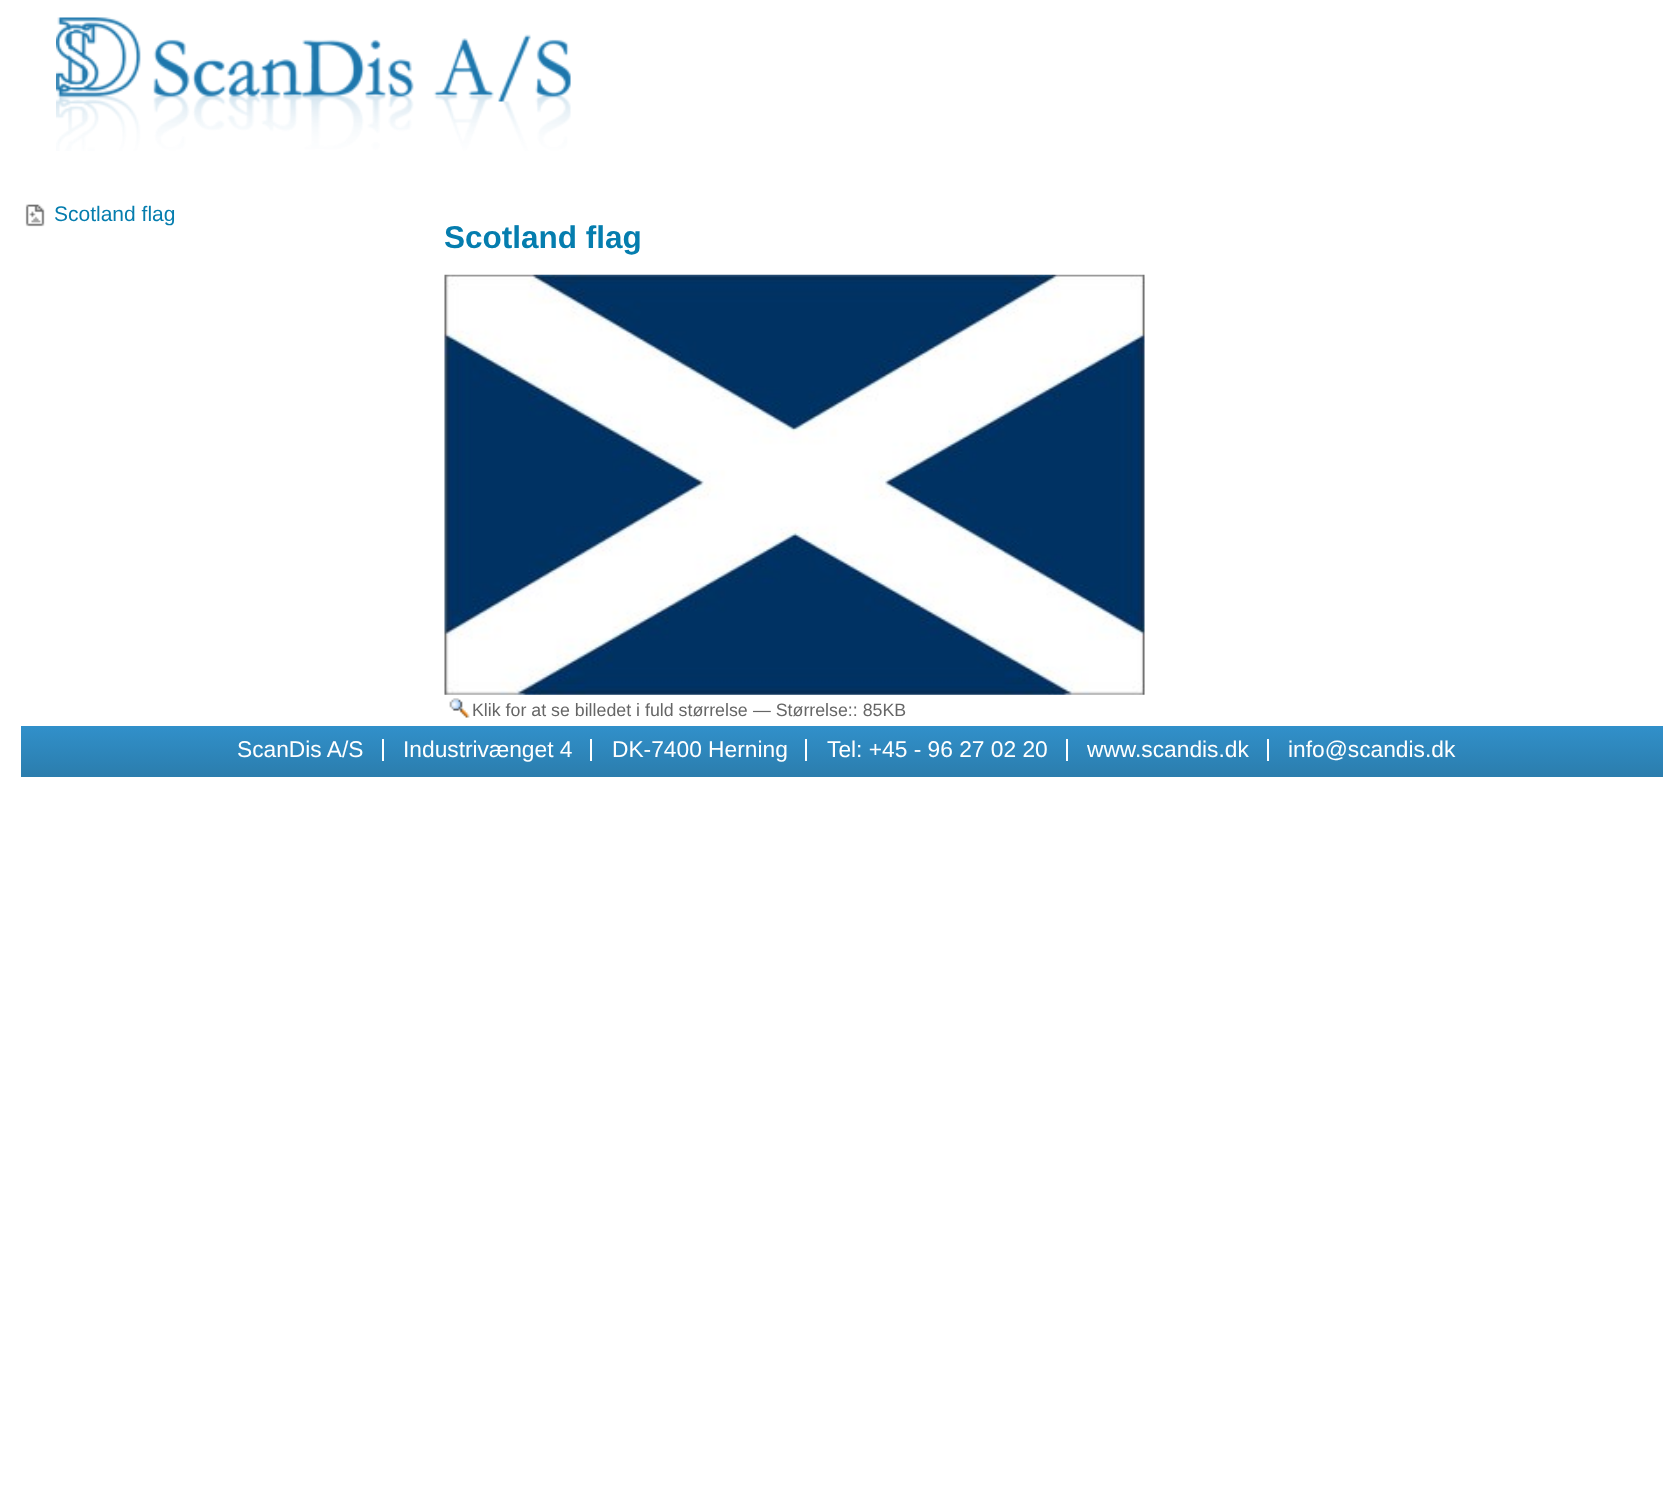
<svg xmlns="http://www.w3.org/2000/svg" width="1675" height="1499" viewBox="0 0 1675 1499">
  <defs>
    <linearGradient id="g1" gradientUnits="userSpaceOnUse" x1="842" y1="726" x2="842" y2="777"><stop offset="0" stop-color="rgb(49,144,202)"/><stop offset="1" stop-color="rgb(43,125,173)"/></linearGradient>
  </defs>
  <rect width="100%" height="100%" fill="rgb(255,255,255)"/>
  <image x="56" y="17" width="515" height="134" href="pic1.png"/>
  <image x="25" y="204" width="20" height="23" href="pic2.png"/>
  <text x="54" y="221" font-family="Liberation Sans" font-size="21" fill="rgb(5,125,174)">Scotland flag</text>
  <text x="444" y="248" font-family="Liberation Sans" font-size="31.5" font-weight="bold" fill="rgb(5,125,174)">Scotland flag</text>
  <image x="444" y="274" width="701" height="421" href="pic3.png"/>
  <image x="449" y="698" width="21" height="20" href="pic4.png"/>
  <g font-family="Liberation Sans" font-size="17.8" fill="rgb(102,102,102)">
    <text x="472" y="716">Klik for at se billedet i fuld størrelse</text>
    <text x="753" y="716">— Størrelse:: 85KB</text>
  </g>
  <rect x="21" y="726" width="1642" height="51" fill="url(#g1)"/>
  <text x="237" y="757" font-family="Liberation Sans" font-size="22.75" fill="rgb(255,255,255)">ScanDis A/S</text>
  <rect x="382" y="739" width="2" height="22" fill="rgb(255,255,255)"/>
  <text x="403" y="757" font-family="Liberation Sans" font-size="22.75" fill="rgb(255,255,255)">Industrivænget 4</text>
  <rect x="590" y="739" width="2" height="22" fill="rgb(255,255,255)"/>
  <text x="612" y="757" font-family="Liberation Sans" font-size="22.75" fill="rgb(255,255,255)">DK-7400 Herning</text>
  <rect x="805" y="739" width="2" height="22" fill="rgb(255,255,255)"/>
  <text x="827" y="757" font-family="Liberation Sans" font-size="22.75" fill="rgb(255,255,255)">Tel: +45 - 96 27 02 20</text>
  <rect x="1066" y="739" width="2" height="22" fill="rgb(255,255,255)"/>
  <text x="1087" y="757" font-family="Liberation Sans" font-size="22.75" fill="rgb(255,255,255)">www.scandis.dk</text>
  <rect x="1267" y="739" width="2" height="22" fill="rgb(255,255,255)"/>
  <text x="1288" y="757" font-family="Liberation Sans" font-size="22.75" fill="rgb(255,255,255)">info@scandis.dk</text>
</svg>
